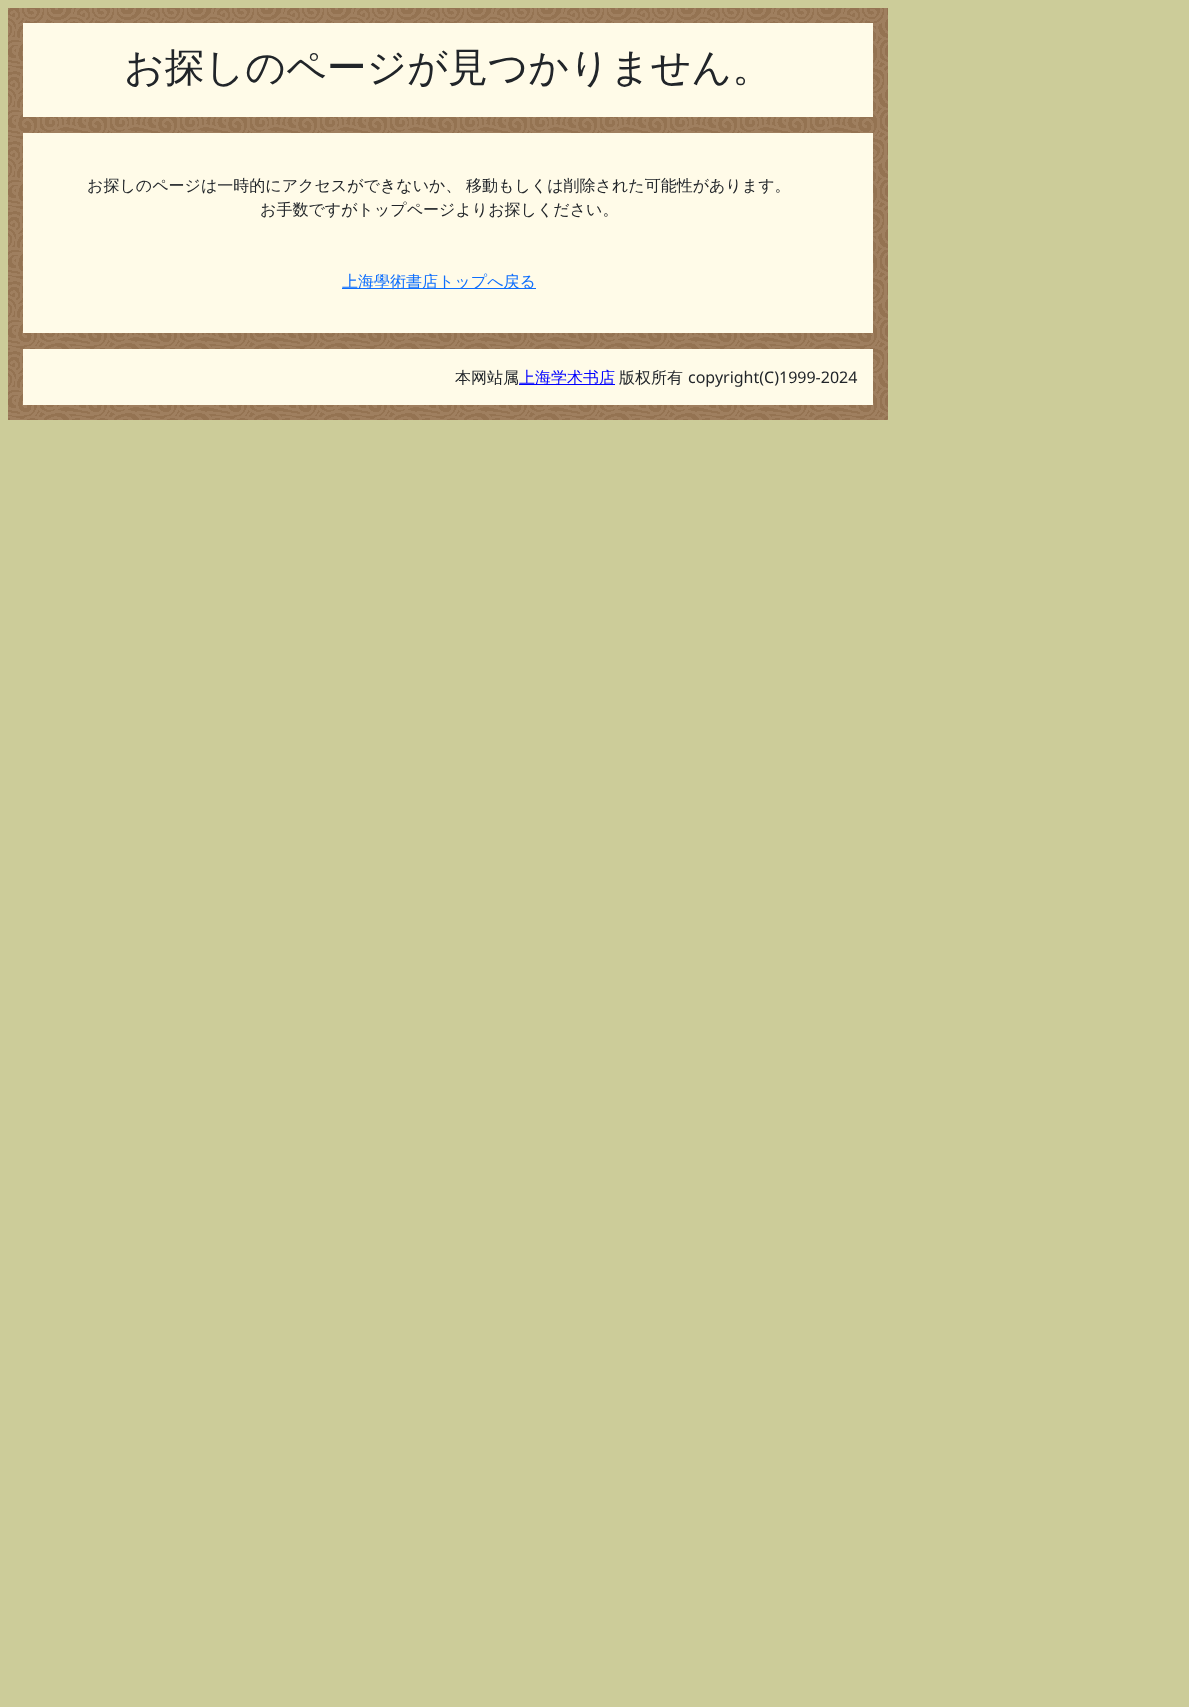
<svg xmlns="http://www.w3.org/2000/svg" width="1189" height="1707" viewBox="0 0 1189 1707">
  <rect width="100%" height="100%" fill="rgb(204,204,153)"/>
  <rect x="8" y="8" width="880" height="412" fill="rgb(148,115,82)"/>
  <image x="8" y="8" width="880" height="412" href="pic1.png"/>
  <rect x="23" y="23" width="850" height="94" fill="rgb(255,251,232)"/>
  <text x="124" y="81" font-family="WenQuanYi Zen Hei" font-size="39.8" font-weight="500" fill="rgb(33,37,41)">お探しのページが見つかりません。</text>
  <rect x="23" y="133" width="850" height="200" fill="rgb(255,251,232)"/>
  <g font-family="WenQuanYi Zen Hei" font-size="16" font-weight="500" fill="rgb(33,37,41)">
    <text x="87" y="191">お探しのページは一時的にアクセスができないか、</text>
    <text x="466" y="191">移動もしくは削除された可能性があります。</text>
    <text x="260" y="215">お手数ですがトップページよりお探しください。</text>
  </g>
  <rect x="342" y="288" width="194" height="1" fill="rgb(13,110,253)"/>
  <text x="342" y="287" font-family="WenQuanYi Zen Hei" font-size="16" font-weight="500" fill="rgb(13,110,253)">上海學術書店トップへ戻る</text>
  <rect x="23" y="349" width="850" height="56" fill="rgb(255,251,232)"/>
  <text x="455" y="383" font-family="WenQuanYi Zen Hei" font-size="16" font-weight="500" fill="rgb(33,37,41)">本网站属</text>
  <rect x="519" y="384" width="96" height="1" fill="rgb(0,0,255)"/>
  <text x="519" y="383" font-family="WenQuanYi Zen Hei" font-size="16" font-weight="500" fill="rgb(0,0,255)">上海学术书店</text>
  <text x="619" y="383" font-family="WenQuanYi Zen Hei" font-size="16" font-weight="500" fill="rgb(33,37,41)">版权所有</text>
  <text x="688" y="383" font-family="Noto Sans" font-size="16" fill="rgb(33,37,41)">copyright(C)1999-2024</text>
</svg>
